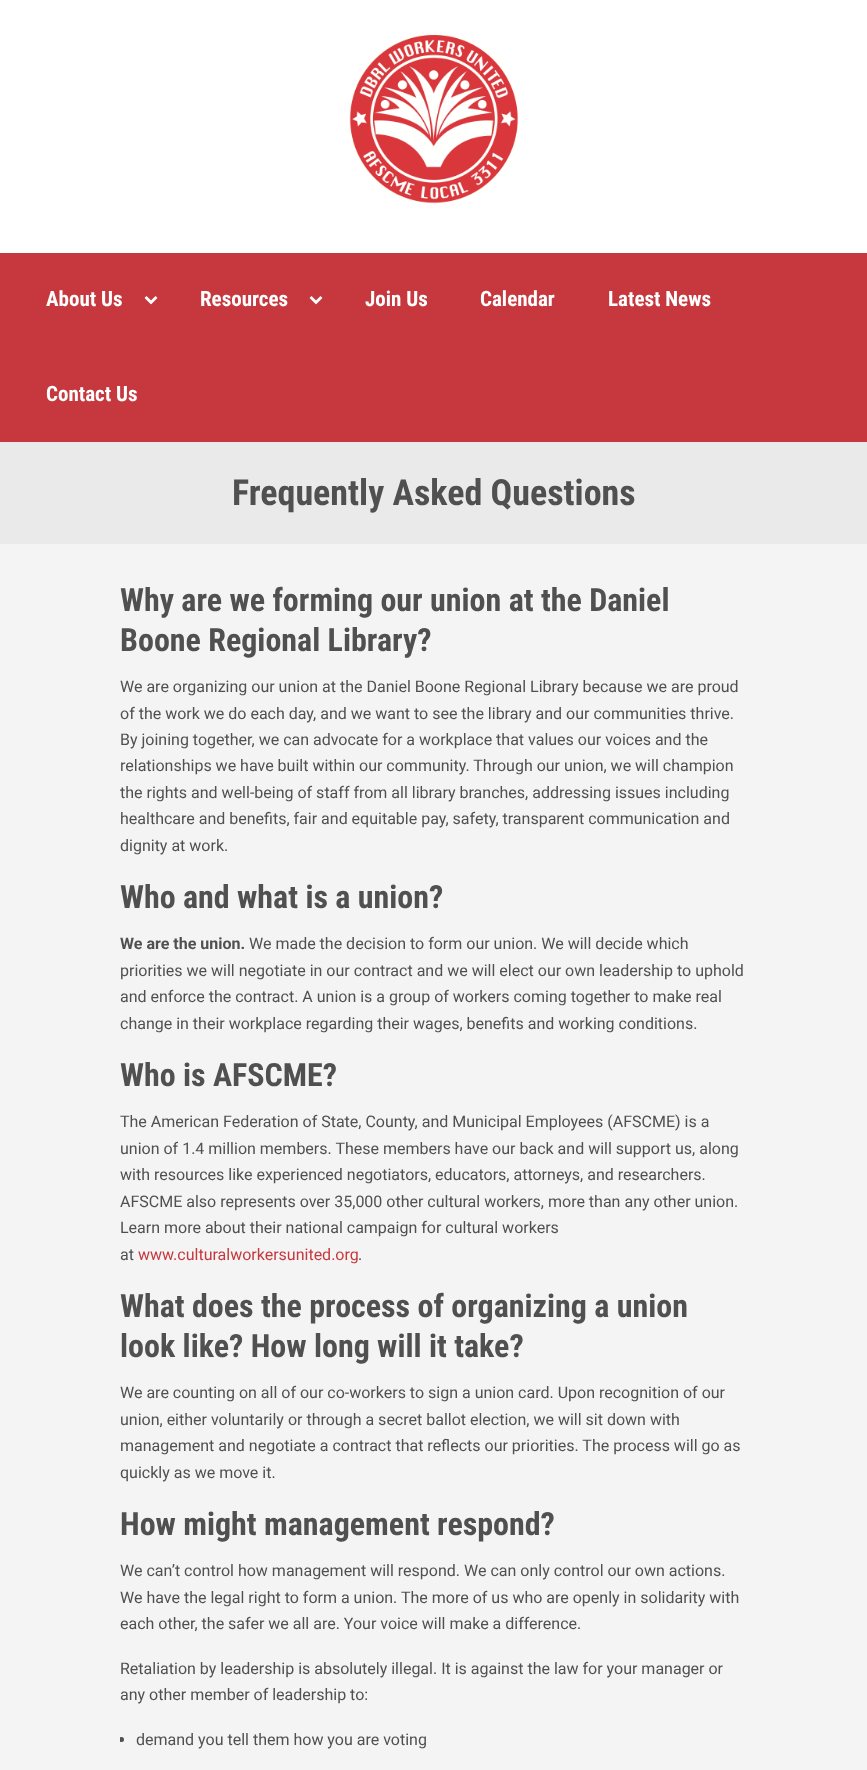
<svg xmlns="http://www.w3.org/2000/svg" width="867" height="1770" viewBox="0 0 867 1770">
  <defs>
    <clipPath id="clip1"><rect x="120" y="1727" width="627" height="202"/></clipPath>
  </defs>
  <rect width="100%" height="100%" fill="rgb(244,244,244)"/>
  <rect x="0" y="0" width="867" height="253" fill="rgb(255,255,255)"/>
  <image x="349" y="34" width="170" height="170" href="pic1.png"/>
  <rect x="0" y="253" width="867" height="189" fill="rgb(198,56,61)"/>
  <text x="46" y="306" font-family="Roboto Condensed" font-size="21" font-weight="bold" fill="rgb(255,255,255)">About Us</text>
  <image x="144" y="296" width="14" height="9" href="pic2.png"/>
  <text x="200" y="306" font-family="Roboto Condensed" font-size="21" font-weight="bold" fill="rgb(255,255,255)">Resources</text>
  <image x="309" y="296" width="14" height="9" href="pic2.png"/>
  <g font-family="Roboto Condensed" font-size="21" font-weight="bold" fill="rgb(255,255,255)">
    <text x="365" y="306">Join Us</text>
    <text x="480" y="306">Calendar</text>
    <text x="608" y="306">Latest News</text>
    <text x="46" y="401">Contact Us</text>
  </g>
  <rect x="0" y="442" width="867" height="102" fill="rgb(234,234,234)"/>
  <text x="232" y="505" font-family="Roboto Condensed" font-size="36" font-weight="bold" fill="rgb(80,80,80)">Frequently Asked Questions</text>
  <g font-family="Roboto Condensed" font-size="32" font-weight="bold" fill="rgb(80,80,80)">
    <text>
      <tspan x="120" y="611">Why are we forming our union at the Daniel</tspan>
      <tspan x="120" y="651">Boone Regional Library?</tspan>
    </text>
  </g>
  <g font-family="Roboto" font-size="16" fill="rgb(80,80,80)">
    <text>
      <tspan x="120" y="692">We are organizing our union at the Daniel Boone Regional Library because we are proud</tspan>
      <tspan x="120" y="719">of the work we do each day, and we want to see the library and our communities thrive.</tspan>
      <tspan x="120" y="745">By joining together, we can advocate for a workplace that values our voices and the</tspan>
      <tspan x="120" y="771">relationships we have built within our community. Through our union, we will champion</tspan>
      <tspan x="120" y="798">the rights and well-being of staff from all library branches, addressing issues including</tspan>
      <tspan x="120" y="824">healthcare and benefits, fair and equitable pay, safety, transparent communication and</tspan>
      <tspan x="120" y="851">dignity at work.</tspan>
    </text>
  </g>
  <text x="120" y="908" font-family="Roboto Condensed" font-size="32" font-weight="bold" fill="rgb(80,80,80)">Who and what is a union?</text>
  <text x="120" y="949" font-family="Roboto" font-size="16" font-weight="bold" fill="rgb(80,80,80)">We are the union.</text>
  <g font-family="Roboto" font-size="16" fill="rgb(80,80,80)">
    <text x="249" y="949">We made the decision to form our union. We will decide which</text>
    <text>
      <tspan x="120" y="976">priorities we will negotiate in our contract and we will elect our own leadership to uphold</tspan>
      <tspan x="120" y="1002">and enforce the contract. A union is a group of workers coming together to make real</tspan>
      <tspan x="120" y="1029">change in their workplace regarding their wages, benefits and working conditions.</tspan>
    </text>
  </g>
  <text x="120" y="1086" font-family="Roboto Condensed" font-size="32" font-weight="bold" fill="rgb(80,80,80)">Who is AFSCME?</text>
  <g font-family="Roboto" font-size="16" fill="rgb(80,80,80)">
    <text>
      <tspan x="120" y="1127">The American Federation of State, County, and Municipal Employees (AFSCME) is a</tspan>
      <tspan x="120" y="1154">union of 1.4 million members. These members have our back and will support us, along</tspan>
      <tspan x="120" y="1180">with resources like experienced negotiators, educators, attorneys, and researchers.</tspan>
      <tspan x="120" y="1207">AFSCME also represents over 35,000 other cultural workers, more than any other union.</tspan>
      <tspan x="120" y="1233">Learn more about their national campaign for cultural workers</tspan>
      <tspan x="120" y="1260">at</tspan>
    </text>
  </g>
  <text x="138" y="1260" font-family="Roboto" font-size="16" fill="rgb(198,56,61)">www.culturalworkersunited.org</text>
  <text x="358" y="1260" font-family="Roboto" font-size="16" fill="rgb(80,80,80)">.</text>
  <g font-family="Roboto Condensed" font-size="32" font-weight="bold" fill="rgb(80,80,80)">
    <text>
      <tspan x="120" y="1317">What does the process of organizing a union</tspan>
      <tspan x="120" y="1357">look like? How long will it take?</tspan>
    </text>
  </g>
  <g font-family="Roboto" font-size="16" fill="rgb(80,80,80)">
    <text>
      <tspan x="120" y="1398">We are counting on all of our co-workers to sign a union card. Upon recognition of our</tspan>
      <tspan x="120" y="1425">union, either voluntarily or through a secret ballot election, we will sit down with</tspan>
      <tspan x="120" y="1451">management and negotiate a contract that reflects our priorities. The process will go as</tspan>
      <tspan x="120" y="1478">quickly as we move it.</tspan>
    </text>
  </g>
  <text x="120" y="1535" font-family="Roboto Condensed" font-size="32" font-weight="bold" fill="rgb(80,80,80)">How might management respond?</text>
  <g font-family="Roboto" font-size="16" fill="rgb(80,80,80)">
    <text>
      <tspan x="120" y="1576">We can’t control how management will respond. We can only control our own actions.</tspan>
      <tspan x="120" y="1603">We have the legal right to form a union. The more of us who are openly in solidarity with</tspan>
      <tspan x="120" y="1629">each other, the safer we all are. Your voice will make a difference.</tspan>
    </text>
    <text>
      <tspan x="120" y="1674">Retaliation by leadership is absolutely illegal. It is against the law for your manager or</tspan>
      <tspan x="120" y="1700">any other member of leadership to:</tspan>
    </text>
  </g>
  <g clip-path="url(#clip1)">
    <circle cx="121.5" cy="1739.5" r="2.5" fill="rgb(80,80,80)"/>
  </g>
  <text x="136" y="1745" font-family="Roboto" font-size="16" fill="rgb(80,80,80)">demand you tell them how you are voting</text>
</svg>
